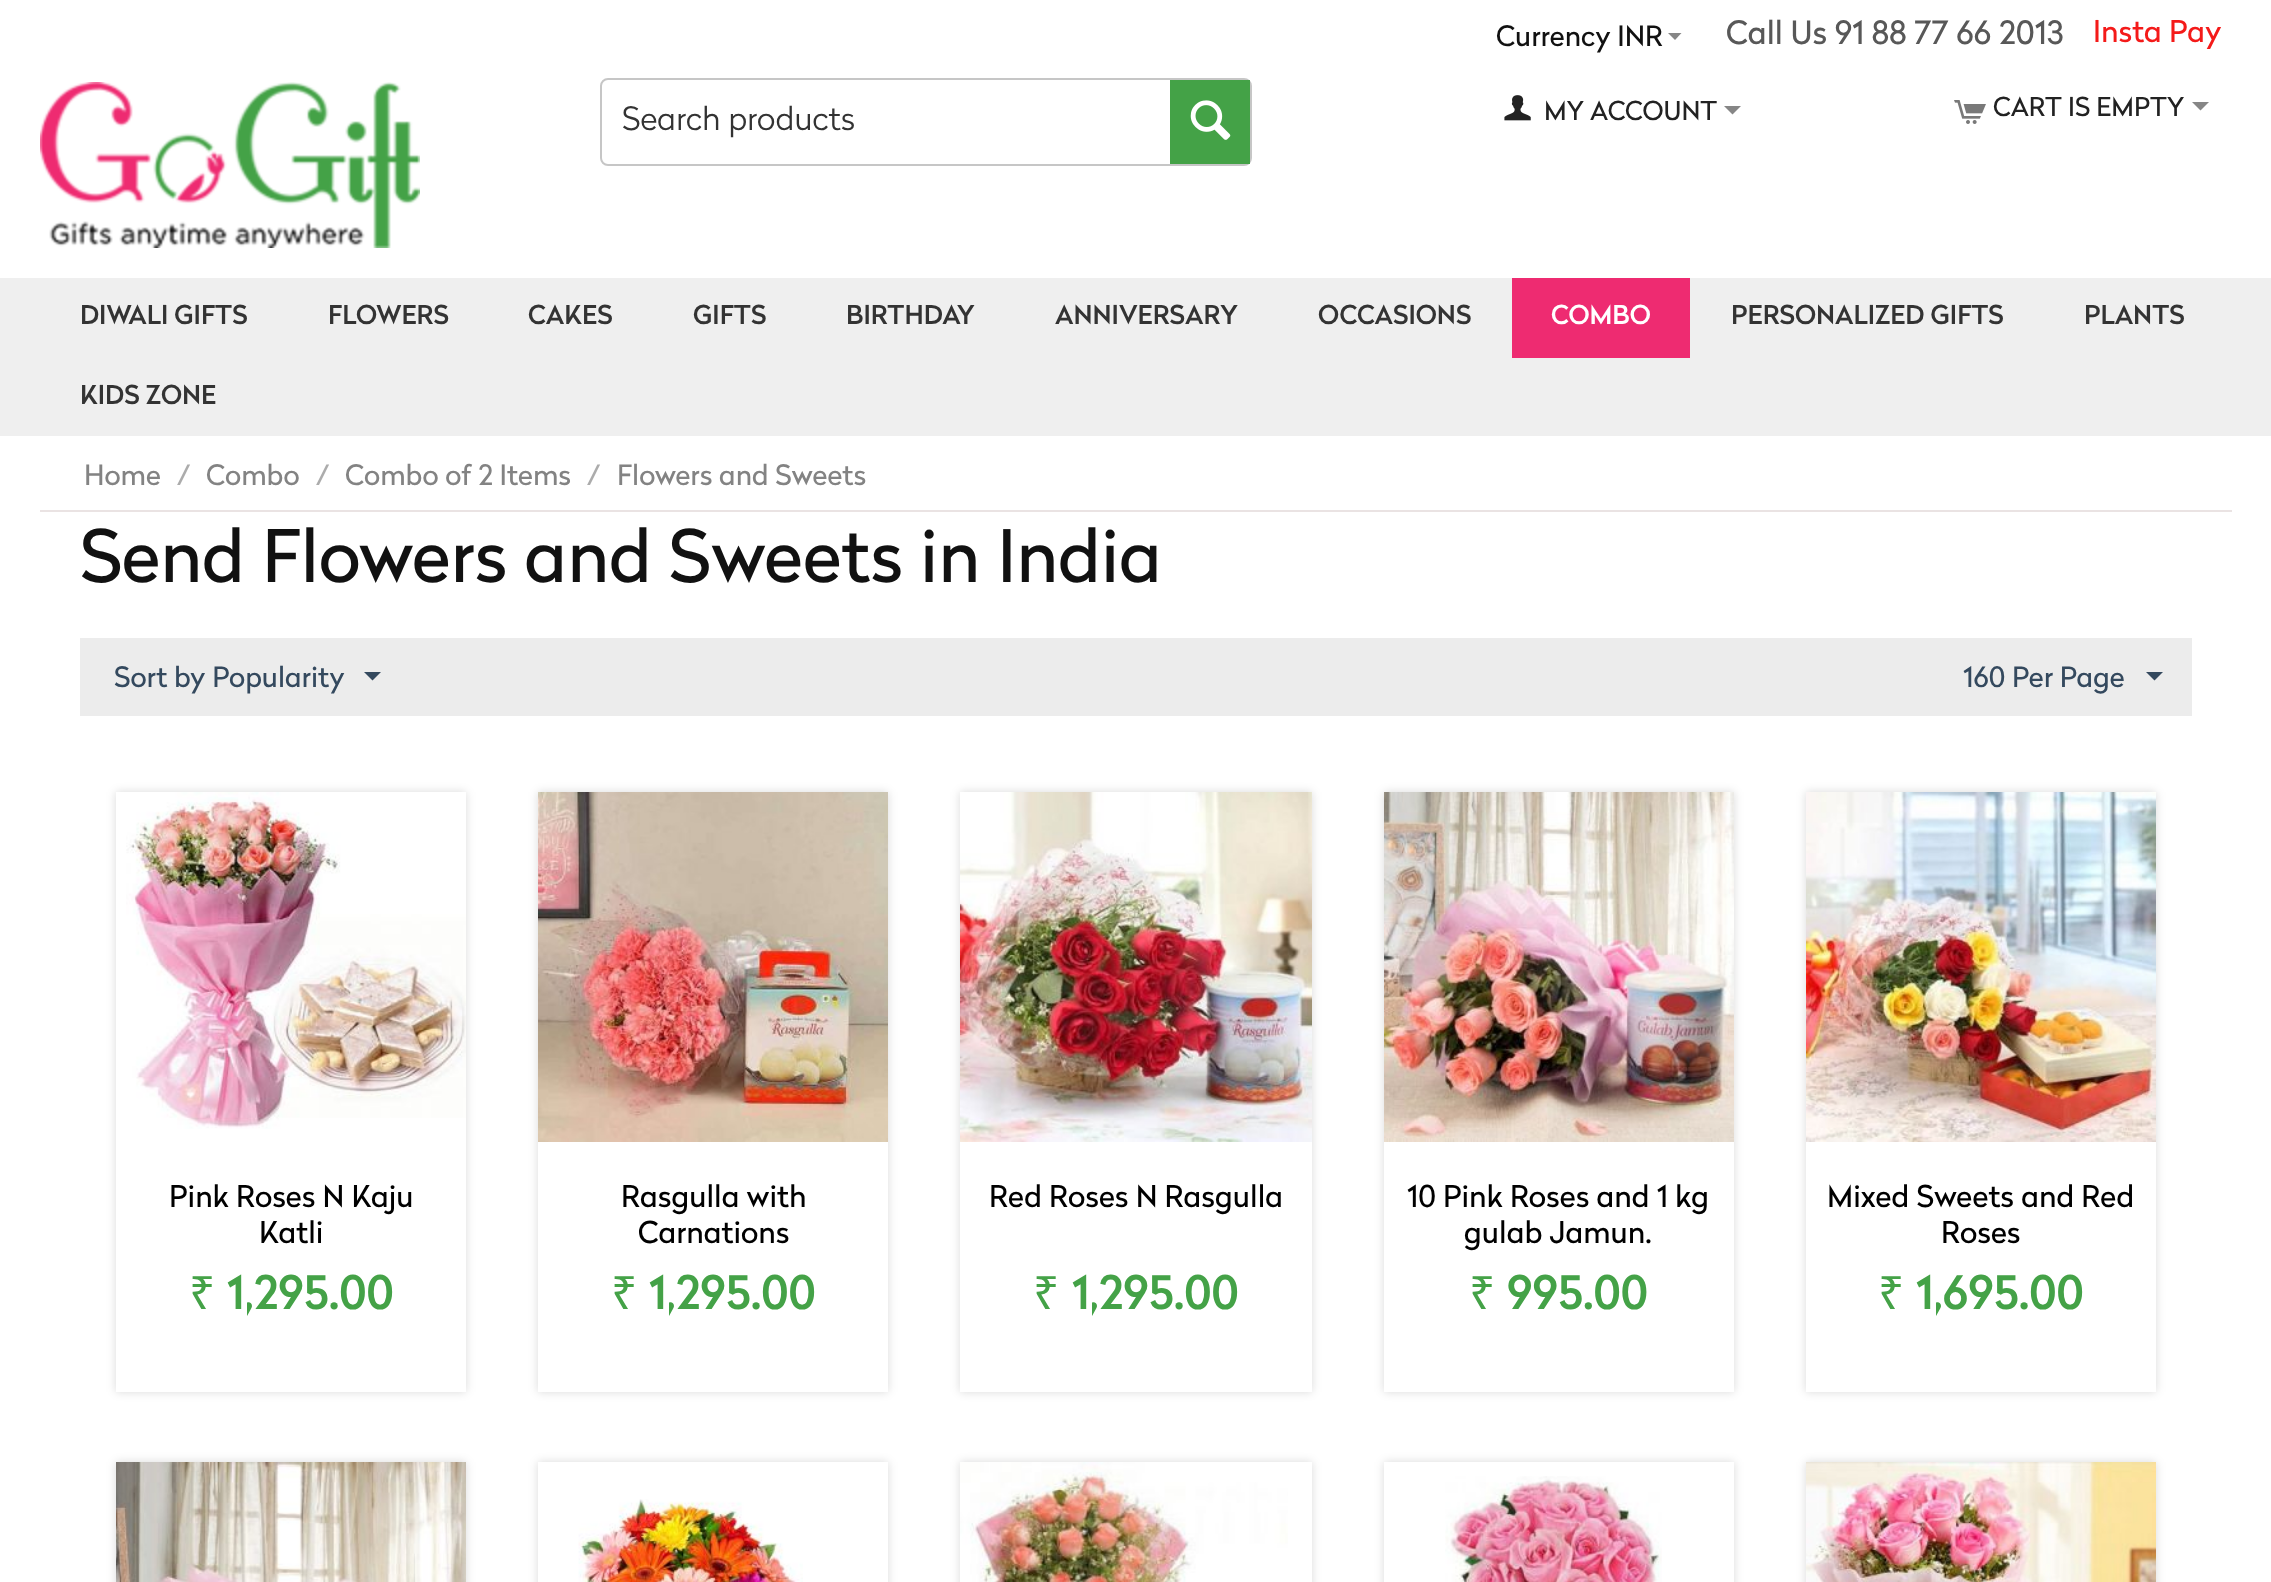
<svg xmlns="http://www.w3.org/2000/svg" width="2271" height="1582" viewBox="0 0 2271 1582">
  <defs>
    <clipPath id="clip1"><path d="M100 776H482V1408H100ZM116 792H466V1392H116Z" clip-rule="evenodd"/></clipPath>
    <clipPath id="clip2"><path d="M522 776H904V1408H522ZM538 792H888V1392H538Z" clip-rule="evenodd"/></clipPath>
    <clipPath id="clip3"><path d="M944 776H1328V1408H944ZM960 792H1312V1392H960Z" clip-rule="evenodd"/></clipPath>
    <clipPath id="clip4"><path d="M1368 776H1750V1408H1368ZM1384 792H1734V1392H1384Z" clip-rule="evenodd"/></clipPath>
    <clipPath id="clip5"><path d="M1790 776H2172V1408H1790ZM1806 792H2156V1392H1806Z" clip-rule="evenodd"/></clipPath>
    <clipPath id="clip6"><path d="M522 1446H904V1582H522ZM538 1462H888V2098H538Z" clip-rule="evenodd"/></clipPath>
    <clipPath id="clip7"><path d="M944 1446H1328V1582H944ZM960 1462H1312V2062H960Z" clip-rule="evenodd"/></clipPath>
    <clipPath id="clip8"><path d="M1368 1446H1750V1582H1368ZM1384 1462H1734V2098H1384Z" clip-rule="evenodd"/></clipPath>
  </defs>
  <rect width="100%" height="100%" fill="rgb(255,255,255)"/>
  <text x="1496" y="46" font-family="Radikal" font-size="28" fill="rgb(17,17,17)">Currency INR</text>
  <path d="M1675 40L1668 33H1681.5Z" fill="rgb(134,134,134)"/>
  <text x="1726" y="44" font-family="Radikal" font-size="32" fill="rgb(88,88,88)">Call Us 91 88 77 66 2013</text>
  <text x="2093" y="42" font-family="Radikal" font-size="30" fill="rgb(244,26,25)">Insta Pay</text>
  <image x="40" y="82" width="380" height="166" href="pic1.png"/>
  <rect x="601" y="79" width="650" height="86" rx="7" fill="none" stroke="rgb(198,198,198)" stroke-width="2"/>
  <text x="622" y="130" font-family="Radikal" font-size="32" font-weight="300" fill="rgb(51,51,51)">Search products</text>
  <rect x="1170" y="80" width="80" height="84" fill="rgb(68,162,71)"/>
  <image x="1190" y="100" width="41" height="40" href="pic2.png"/>
  <image x="1504" y="95" width="27" height="26" href="pic3.png"/>
  <text x="1544" y="120" font-family="Radikal" font-size="26" fill="rgb(34,34,34)">MY ACCOUNT</text>
  <path d="M1732.5 114.5L1724 106H1741Z" fill="rgb(134,134,134)"/>
  <image x="1954" y="100" width="32" height="24" href="pic4.png"/>
  <text x="1993" y="116" font-family="Radikal" font-size="26" fill="rgb(34,34,34)">CART IS EMPTY</text>
  <path d="M2200.5 110.5L2192 102H2209Z" fill="rgb(134,134,134)"/>
  <rect x="0" y="278" width="2271" height="158" fill="rgb(239,239,239)"/>
  <g font-family="Radikal" font-size="26" font-weight="500" fill="rgb(51,51,51)">
    <text x="80" y="324">DIWALI GIFTS</text>
    <text x="328" y="324">FLOWERS</text>
    <text x="528" y="324">CAKES</text>
    <text x="693" y="324">GIFTS</text>
    <text x="846" y="324">BIRTHDAY</text>
    <text x="1055" y="324">ANNIVERSARY</text>
    <text x="1318" y="324">OCCASIONS</text>
  </g>
  <rect x="1512" y="278" width="178" height="80" fill="rgb(238,43,113)"/>
  <text x="1551" y="324" font-family="Radikal" font-size="26" font-weight="500" fill="rgb(255,255,255)">COMBO</text>
  <g font-family="Radikal" font-size="26" font-weight="500" fill="rgb(51,51,51)">
    <text x="1731" y="324">PERSONALIZED GIFTS</text>
    <text x="2084" y="324">PLANTS</text>
    <text x="80" y="404">KIDS ZONE</text>
  </g>
  <rect x="40" y="510" width="2192" height="2" fill="rgb(234,227,227)"/>
  <text x="84" y="485" font-family="Radikal" font-size="28" fill="rgb(131,131,131)">Home</text>
  <text x="177" y="485" font-family="Radikal" font-size="28" fill="rgb(172,172,172)">/</text>
  <text x="206" y="485" font-family="Radikal" font-size="28" fill="rgb(131,131,131)">Combo</text>
  <text x="316" y="485" font-family="Radikal" font-size="28" fill="rgb(172,172,172)">/</text>
  <text x="345" y="485" font-family="Radikal" font-size="28" fill="rgb(131,131,131)">Combo of 2 Items</text>
  <text x="587" y="485" font-family="Radikal" font-size="28" fill="rgb(172,172,172)">/</text>
  <text x="617" y="485" font-family="Radikal" font-size="28" fill="rgb(131,131,131)">Flowers and Sweets</text>
  <text x="80" y="582" font-family="Radikal" font-size="72" fill="rgb(17,17,17)">Send Flowers and Sweets in India</text>
  <rect x="80" y="638" width="2112" height="78" fill="rgb(236,236,236)"/>
  <text x="114" y="687" font-family="Radikal" font-size="28" fill="rgb(52,73,94)">Sort by Popularity</text>
  <path d="M372.5 680.5L364 672H381Z" fill="rgb(52,73,94)"/>
  <text x="1963" y="687" font-family="Radikal" font-size="28" fill="rgb(52,73,94)">160 Per Page</text>
  <path d="M2154.5 680.5L2146 672H2163Z" fill="rgb(52,73,94)"/>
  <g clip-path="url(#clip1)">
    <rect x="116" y="792" width="350" height="600" fill="rgba(0,0,0,0.15)" filter="blur(5px)"/>
  </g>
  <image x="126" y="792" width="340" height="337" href="pic5.png"/>
  <g font-family="Radikal" font-size="30" fill="rgb(0,0,0)">
    <text x="169" y="1207">Pink Roses N Kaju</text>
    <text x="259" y="1243">Katli</text>
  </g>
  <text x="189" y="1309" font-family="Noto Sans" font-size="46" fill="rgb(68,162,71)">₹</text>
  <text x="227" y="1309" font-family="Radikal" font-size="46" font-weight="500" fill="rgb(68,162,71)">1,295.00</text>
  <g clip-path="url(#clip2)">
    <rect x="538" y="792" width="350" height="600" fill="rgba(0,0,0,0.15)" filter="blur(5px)"/>
  </g>
  <image x="538" y="792" width="350" height="350" href="pic6.png"/>
  <g font-family="Radikal" font-size="30" fill="rgb(0,0,0)">
    <text x="621" y="1207">Rasgulla with</text>
    <text x="638" y="1243">Carnations</text>
  </g>
  <text x="611" y="1309" font-family="Noto Sans" font-size="46" fill="rgb(68,162,71)">₹</text>
  <text x="649" y="1309" font-family="Radikal" font-size="46" font-weight="500" fill="rgb(68,162,71)">1,295.00</text>
  <g clip-path="url(#clip3)">
    <rect x="960" y="792" width="352" height="600" fill="rgba(0,0,0,0.15)" filter="blur(5px)"/>
  </g>
  <image x="960" y="792" width="352" height="350" href="pic7.png"/>
  <text x="989" y="1207" font-family="Radikal" font-size="30" fill="rgb(0,0,0)">Red Roses N Rasgulla</text>
  <text x="1033" y="1309" font-family="Noto Sans" font-size="46" fill="rgb(68,162,71)">₹</text>
  <text x="1072" y="1309" font-family="Radikal" font-size="46" font-weight="500" fill="rgb(68,162,71)">1,295.00</text>
  <g clip-path="url(#clip4)">
    <rect x="1384" y="792" width="350" height="600" fill="rgba(0,0,0,0.15)" filter="blur(5px)"/>
  </g>
  <image x="1384" y="792" width="350" height="350" href="pic8.png"/>
  <g font-family="Radikal" font-size="30" fill="rgb(0,0,0)">
    <text x="1407" y="1207">10 Pink Roses and 1 kg</text>
    <text x="1464" y="1243">gulab Jamun.</text>
  </g>
  <text x="1469" y="1309" font-family="Noto Sans" font-size="46" fill="rgb(68,162,71)">₹</text>
  <text x="1507" y="1309" font-family="Radikal" font-size="46" font-weight="500" fill="rgb(68,162,71)">995.00</text>
  <g clip-path="url(#clip5)">
    <rect x="1806" y="792" width="350" height="600" fill="rgba(0,0,0,0.15)" filter="blur(5px)"/>
  </g>
  <image x="1806" y="792" width="350" height="350" href="pic9.png"/>
  <g font-family="Radikal" font-size="30" fill="rgb(0,0,0)">
    <text x="1827" y="1207">Mixed Sweets and Red</text>
    <text x="1941" y="1243">Roses</text>
  </g>
  <text x="1878" y="1309" font-family="Noto Sans" font-size="46" fill="rgb(68,162,71)">₹</text>
  <text x="1916" y="1309" font-family="Radikal" font-size="46" font-weight="500" fill="rgb(68,162,71)">1,695.00</text>
  <rect x="116" y="1462" width="350" height="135" fill="rgba(0,0,0,0.15)" filter="blur(5px)"/>
  <image x="116" y="1462" width="350" height="120" href="pic10.png"/>
  <g clip-path="url(#clip6)">
    <rect x="538" y="1462" width="350" height="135" fill="rgba(0,0,0,0.15)" filter="blur(5px)"/>
  </g>
  <image x="578" y="1499" width="225" height="83" href="pic11.png"/>
  <g clip-path="url(#clip7)">
    <rect x="960" y="1462" width="352" height="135" fill="rgba(0,0,0,0.15)" filter="blur(5px)"/>
  </g>
  <image x="960" y="1462" width="328" height="120" href="pic12.png"/>
  <g clip-path="url(#clip8)">
    <rect x="1384" y="1462" width="350" height="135" fill="rgba(0,0,0,0.15)" filter="blur(5px)"/>
  </g>
  <image x="1445" y="1476" width="217" height="106" href="pic13.png"/>
  <rect x="1806" y="1462" width="350" height="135" fill="rgba(0,0,0,0.15)" filter="blur(5px)"/>
  <image x="1806" y="1462" width="350" height="120" href="pic14.png"/>
</svg>
